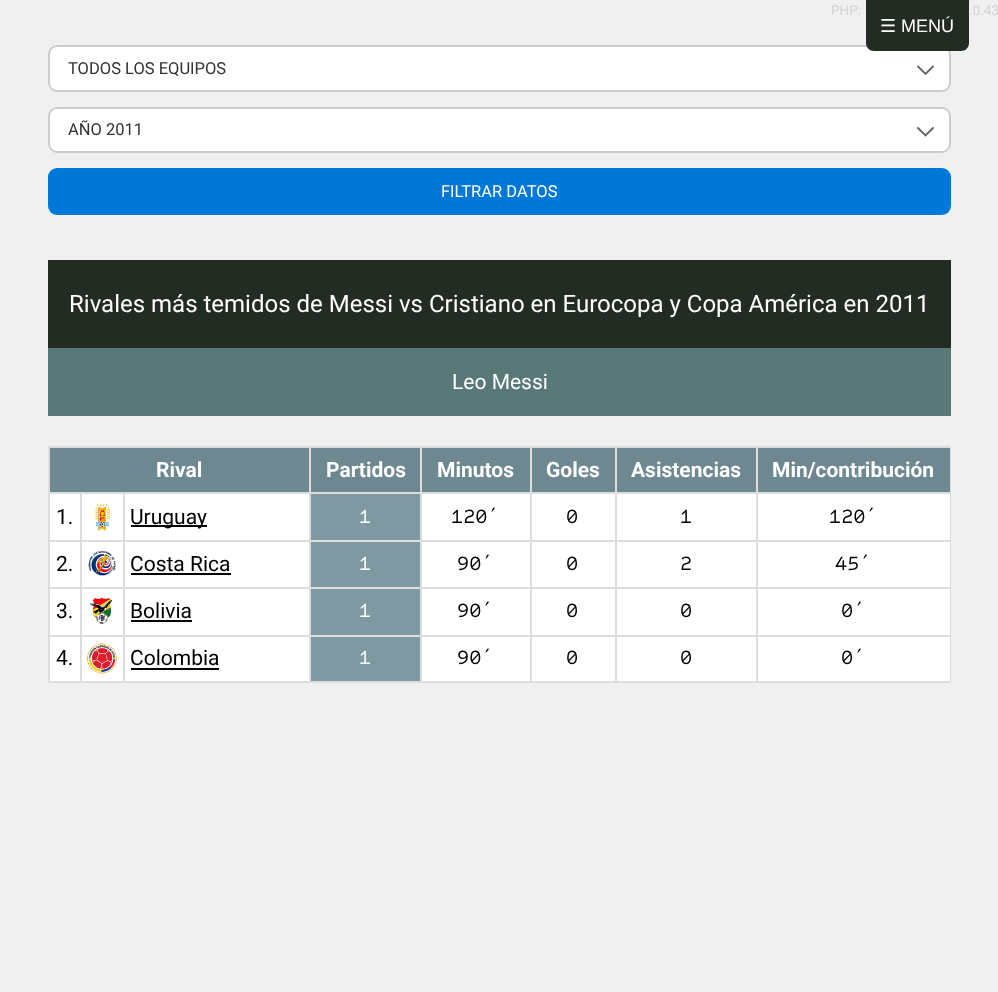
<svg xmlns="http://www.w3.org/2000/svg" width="998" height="992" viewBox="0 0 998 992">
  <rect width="100%" height="100%" fill="rgb(240,240,241)"/>
  <g font-family="Roboto" font-size="13.5" fill="rgb(211,211,214)">
    <text x="831" y="15">PHP:</text>
    <text x="969" y="15">.0.43</text>
  </g>
  <rect x="48" y="45" width="903" height="47" rx="9" fill="rgb(255,255,255)"/>
  <path d="M918 66.5L925.5 74L933 66.5" fill="none" stroke="rgb(102,102,102)" stroke-width="1.9" stroke-linecap="round"/>
  <rect x="49" y="46" width="901" height="45" rx="8" fill="none" stroke="rgb(204,204,204)" stroke-width="2"/>
  <text x="68" y="74" font-family="Roboto" font-size="16.5" fill="rgb(51,51,51)">TODOS LOS EQUIPOS</text>
  <rect x="48" y="107" width="903" height="46" rx="9" fill="rgb(255,255,255)"/>
  <path d="M918 128L925.5 135.5L933 128" fill="none" stroke="rgb(102,102,102)" stroke-width="1.9" stroke-linecap="round"/>
  <rect x="49" y="108" width="901" height="44" rx="8" fill="none" stroke="rgb(204,204,204)" stroke-width="2"/>
  <text x="68" y="135" font-family="Roboto" font-size="16.5" fill="rgb(51,51,51)">AÑO 2011</text>
  <rect x="48" y="168" width="903" height="47" rx="9" fill="rgb(0,120,215)"/>
  <text x="441" y="197" font-family="Roboto" font-size="16.5" fill="rgb(255,255,255)">FILTRAR DATOS</text>
  <rect x="48" y="260" width="903" height="88" fill="rgb(34,44,35)"/>
  <text x="69" y="312" font-family="Roboto" font-size="24" fill="rgb(255,255,255)">Rivales más temidos de Messi vs Cristiano en Eurocopa y Copa América en 2011</text>
  <rect x="48" y="348" width="903" height="68" fill="rgb(89,121,121)"/>
  <text x="452" y="389" font-family="Roboto" font-size="21" fill="rgb(255,255,255)">Leo Messi</text>
  <rect x="48" y="446" width="903" height="2" fill="rgb(221,221,221)"/>
  <rect x="950" y="446" width="1" height="237" fill="rgb(221,221,221)"/>
  <rect x="48" y="681" width="903" height="2" fill="rgb(221,221,221)"/>
  <rect x="48" y="446" width="2" height="237" fill="rgb(221,221,221)"/>
  <rect x="50" y="448" width="259" height="44" fill="rgb(109,136,145)"/>
  <text x="156" y="477" font-family="Roboto" font-size="21" font-weight="bold" fill="rgb(255,255,255)">Rival</text>
  <rect x="311" y="448" width="109" height="44" fill="rgb(109,136,145)"/>
  <rect x="756" y="492" width="195" height="2" fill="rgb(221,221,221)"/>
  <rect x="756" y="540" width="195" height="2" fill="rgb(221,221,221)"/>
  <rect x="756" y="587" width="195" height="2" fill="rgb(221,221,221)"/>
  <rect x="756" y="635" width="195" height="2" fill="rgb(221,221,221)"/>
  <rect x="756" y="635" width="2" height="48" fill="rgb(221,221,221)"/>
  <rect x="615" y="635" width="143" height="2" fill="rgb(221,221,221)"/>
  <rect x="756" y="587" width="2" height="49" fill="rgb(221,221,221)"/>
  <rect x="615" y="587" width="143" height="2" fill="rgb(221,221,221)"/>
  <rect x="756" y="540" width="2" height="48" fill="rgb(221,221,221)"/>
  <rect x="615" y="540" width="143" height="2" fill="rgb(221,221,221)"/>
  <rect x="756" y="492" width="2" height="50" fill="rgb(221,221,221)"/>
  <rect x="615" y="492" width="143" height="2" fill="rgb(221,221,221)"/>
  <rect x="615" y="635" width="2" height="48" fill="rgb(221,221,221)"/>
  <rect x="530" y="635" width="87" height="2" fill="rgb(221,221,221)"/>
  <rect x="615" y="587" width="2" height="49" fill="rgb(221,221,221)"/>
  <rect x="530" y="587" width="87" height="2" fill="rgb(221,221,221)"/>
  <rect x="615" y="540" width="2" height="48" fill="rgb(221,221,221)"/>
  <rect x="530" y="540" width="87" height="2" fill="rgb(221,221,221)"/>
  <rect x="615" y="492" width="2" height="50" fill="rgb(221,221,221)"/>
  <rect x="530" y="492" width="87" height="2" fill="rgb(221,221,221)"/>
  <rect x="530" y="635" width="2" height="48" fill="rgb(221,221,221)"/>
  <rect x="420" y="635" width="111" height="2" fill="rgb(221,221,221)"/>
  <rect x="530" y="587" width="2" height="49" fill="rgb(221,221,221)"/>
  <rect x="420" y="587" width="111" height="2" fill="rgb(221,221,221)"/>
  <rect x="530" y="540" width="2" height="48" fill="rgb(221,221,221)"/>
  <rect x="420" y="540" width="111" height="2" fill="rgb(221,221,221)"/>
  <rect x="530" y="492" width="2" height="50" fill="rgb(221,221,221)"/>
  <rect x="420" y="492" width="111" height="2" fill="rgb(221,221,221)"/>
  <rect x="420" y="635" width="2" height="48" fill="rgb(221,221,221)"/>
  <rect x="309" y="635" width="113" height="2" fill="rgb(221,221,221)"/>
  <rect x="420" y="587" width="2" height="49" fill="rgb(221,221,221)"/>
  <rect x="309" y="587" width="113" height="2" fill="rgb(221,221,221)"/>
  <rect x="420" y="540" width="2" height="48" fill="rgb(221,221,221)"/>
  <rect x="309" y="540" width="113" height="2" fill="rgb(221,221,221)"/>
  <rect x="420" y="492" width="2" height="50" fill="rgb(221,221,221)"/>
  <rect x="309" y="492" width="113" height="2" fill="rgb(221,221,221)"/>
  <rect x="309" y="635" width="2" height="48" fill="rgb(221,221,221)"/>
  <rect x="123" y="635" width="188" height="2" fill="rgb(221,221,221)"/>
  <rect x="309" y="587" width="2" height="49" fill="rgb(221,221,221)"/>
  <rect x="123" y="587" width="188" height="2" fill="rgb(221,221,221)"/>
  <rect x="309" y="540" width="2" height="48" fill="rgb(221,221,221)"/>
  <rect x="123" y="540" width="188" height="2" fill="rgb(221,221,221)"/>
  <rect x="309" y="492" width="2" height="50" fill="rgb(221,221,221)"/>
  <rect x="123" y="492" width="188" height="2" fill="rgb(221,221,221)"/>
  <rect x="309" y="446" width="2" height="48" fill="rgb(221,221,221)"/>
  <text x="326" y="477" font-family="Roboto" font-size="21" font-weight="bold" fill="rgb(255,255,255)">Partidos</text>
  <rect x="422" y="448" width="108" height="44" fill="rgb(109,136,145)"/>
  <rect x="420" y="446" width="2" height="48" fill="rgb(221,221,221)"/>
  <text x="437" y="477" font-family="Roboto" font-size="21" font-weight="bold" fill="rgb(255,255,255)">Minutos</text>
  <rect x="532" y="448" width="83" height="44" fill="rgb(109,136,145)"/>
  <rect x="530" y="446" width="2" height="48" fill="rgb(221,221,221)"/>
  <text x="546" y="477" font-family="Roboto" font-size="21" font-weight="bold" fill="rgb(255,255,255)">Goles</text>
  <rect x="617" y="448" width="139" height="44" fill="rgb(109,136,145)"/>
  <rect x="615" y="446" width="2" height="48" fill="rgb(221,221,221)"/>
  <text x="631" y="477" font-family="Roboto" font-size="21" font-weight="bold" fill="rgb(255,255,255)">Asistencias</text>
  <rect x="758" y="448" width="192" height="44" fill="rgb(109,136,145)"/>
  <rect x="756" y="446" width="2" height="48" fill="rgb(221,221,221)"/>
  <text x="772" y="477" font-family="Roboto" font-size="21" font-weight="bold" fill="rgb(255,255,255)">Min/contribución</text>
  <rect x="50" y="494" width="30" height="46" fill="rgb(255,255,255)"/>
  <rect x="123" y="635" width="2" height="48" fill="rgb(221,221,221)"/>
  <rect x="80" y="635" width="45" height="2" fill="rgb(221,221,221)"/>
  <rect x="123" y="587" width="2" height="49" fill="rgb(221,221,221)"/>
  <rect x="80" y="587" width="45" height="2" fill="rgb(221,221,221)"/>
  <rect x="123" y="540" width="2" height="48" fill="rgb(221,221,221)"/>
  <rect x="80" y="540" width="45" height="2" fill="rgb(221,221,221)"/>
  <rect x="123" y="492" width="2" height="50" fill="rgb(221,221,221)"/>
  <rect x="80" y="492" width="45" height="2" fill="rgb(221,221,221)"/>
  <rect x="80" y="635" width="2" height="48" fill="rgb(221,221,221)"/>
  <rect x="48" y="635" width="33" height="2" fill="rgb(221,221,221)"/>
  <rect x="80" y="587" width="2" height="49" fill="rgb(221,221,221)"/>
  <rect x="48" y="587" width="33" height="2" fill="rgb(221,221,221)"/>
  <rect x="80" y="540" width="2" height="48" fill="rgb(221,221,221)"/>
  <rect x="48" y="540" width="33" height="2" fill="rgb(221,221,221)"/>
  <rect x="80" y="492" width="2" height="50" fill="rgb(221,221,221)"/>
  <rect x="48" y="492" width="33" height="2" fill="rgb(221,221,221)"/>
  <text x="56" y="524" font-family="Roboto" font-size="21" fill="rgb(0,0,0)">1.</text>
  <rect x="82" y="494" width="41" height="46" fill="rgb(255,255,255)"/>
  <image x="95" y="504" width="15" height="27" href="pic1.png"/>
  <rect x="125" y="494" width="184" height="46" fill="rgb(255,255,255)"/>
  <rect x="131" y="525" width="76" height="2" fill="rgb(0,0,0)"/>
  <text x="130" y="524" font-family="Roboto" font-size="21" fill="rgb(0,0,0)">Uruguay</text>
  <rect x="311" y="494" width="109" height="46" fill="rgb(126,153,162)"/>
  <text x="359" y="523" font-family="Sometype Mono" font-size="21" fill="rgb(255,255,255)">1</text>
  <rect x="422" y="494" width="108" height="46" fill="rgb(255,255,255)"/>
  <text x="451" y="523" font-family="Sometype Mono" font-size="21" fill="rgb(0,0,0)">120</text>
  <text x="487" y="523" font-family="DejaVu Sans Mono" font-size="21" fill="rgb(0,0,0)">′</text>
  <rect x="532" y="494" width="83" height="46" fill="rgb(255,255,255)"/>
  <text x="566" y="523" font-family="Sometype Mono" font-size="21" fill="rgb(0,0,0)">0</text>
  <rect x="617" y="494" width="139" height="46" fill="rgb(255,255,255)"/>
  <text x="680" y="523" font-family="Sometype Mono" font-size="21" fill="rgb(0,0,0)">1</text>
  <rect x="758" y="494" width="192" height="46" fill="rgb(255,255,255)"/>
  <text x="829" y="523" font-family="Sometype Mono" font-size="21" fill="rgb(0,0,0)">120</text>
  <text x="865" y="523" font-family="DejaVu Sans Mono" font-size="21" fill="rgb(0,0,0)">′</text>
  <rect x="50" y="542" width="30" height="45" fill="rgb(255,255,255)"/>
  <text x="56" y="571" font-family="Roboto" font-size="21" fill="rgb(0,0,0)">2.</text>
  <rect x="82" y="542" width="41" height="45" fill="rgb(255,255,255)"/>
  <image x="88" y="550" width="28" height="26" href="pic2.png"/>
  <rect x="125" y="542" width="184" height="45" fill="rgb(255,255,255)"/>
  <text x="130" y="571" font-family="Roboto" font-size="21" fill="rgb(0,0,0)">Costa Rica</text>
  <rect x="131" y="573" width="100" height="2" fill="rgb(0,0,0)"/>
  <rect x="311" y="542" width="109" height="45" fill="rgb(126,153,162)"/>
  <text x="359" y="570" font-family="Sometype Mono" font-size="21" fill="rgb(255,255,255)">1</text>
  <rect x="422" y="542" width="108" height="45" fill="rgb(255,255,255)"/>
  <text x="457" y="570" font-family="Sometype Mono" font-size="21" fill="rgb(0,0,0)">90</text>
  <text x="481" y="570" font-family="DejaVu Sans Mono" font-size="21" fill="rgb(0,0,0)">′</text>
  <rect x="532" y="542" width="83" height="45" fill="rgb(255,255,255)"/>
  <text x="566" y="570" font-family="Sometype Mono" font-size="21" fill="rgb(0,0,0)">0</text>
  <rect x="617" y="542" width="139" height="45" fill="rgb(255,255,255)"/>
  <text x="680" y="570" font-family="Sometype Mono" font-size="21" fill="rgb(0,0,0)">2</text>
  <rect x="758" y="542" width="192" height="45" fill="rgb(255,255,255)"/>
  <text x="835" y="570" font-family="Sometype Mono" font-size="21" fill="rgb(0,0,0)">45</text>
  <text x="859" y="570" font-family="DejaVu Sans Mono" font-size="21" fill="rgb(0,0,0)">′</text>
  <rect x="50" y="589" width="30" height="46" fill="rgb(255,255,255)"/>
  <text x="56" y="618" font-family="Roboto" font-size="21" fill="rgb(0,0,0)">3.</text>
  <rect x="82" y="589" width="41" height="46" fill="rgb(255,255,255)"/>
  <image x="90" y="597" width="23" height="27" href="pic3.png"/>
  <rect x="125" y="589" width="184" height="46" fill="rgb(255,255,255)"/>
  <text x="130" y="618" font-family="Roboto" font-size="21" fill="rgb(0,0,0)">Bolivia</text>
  <rect x="131" y="620" width="61" height="2" fill="rgb(0,0,0)"/>
  <rect x="311" y="589" width="109" height="46" fill="rgb(126,153,162)"/>
  <text x="359" y="617" font-family="Sometype Mono" font-size="21" fill="rgb(255,255,255)">1</text>
  <rect x="422" y="589" width="108" height="46" fill="rgb(255,255,255)"/>
  <text x="457" y="617" font-family="Sometype Mono" font-size="21" fill="rgb(0,0,0)">90</text>
  <text x="481" y="617" font-family="DejaVu Sans Mono" font-size="21" fill="rgb(0,0,0)">′</text>
  <rect x="532" y="589" width="83" height="46" fill="rgb(255,255,255)"/>
  <text x="566" y="617" font-family="Sometype Mono" font-size="21" fill="rgb(0,0,0)">0</text>
  <rect x="617" y="589" width="139" height="46" fill="rgb(255,255,255)"/>
  <text x="680" y="617" font-family="Sometype Mono" font-size="21" fill="rgb(0,0,0)">0</text>
  <rect x="758" y="589" width="192" height="46" fill="rgb(255,255,255)"/>
  <text x="841" y="617" font-family="Sometype Mono" font-size="21" fill="rgb(0,0,0)">0</text>
  <text x="853" y="617" font-family="DejaVu Sans Mono" font-size="21" fill="rgb(0,0,0)">′</text>
  <rect x="50" y="637" width="30" height="44" fill="rgb(255,255,255)"/>
  <text x="56" y="665" font-family="Roboto" font-size="21" fill="rgb(0,0,0)">4.</text>
  <rect x="82" y="637" width="41" height="44" fill="rgb(255,255,255)"/>
  <image x="87" y="643" width="30" height="31" href="pic4.png"/>
  <rect x="125" y="637" width="184" height="44" fill="rgb(255,255,255)"/>
  <text x="130" y="665" font-family="Roboto" font-size="21" fill="rgb(0,0,0)">Colombia</text>
  <rect x="131" y="668" width="88" height="2" fill="rgb(0,0,0)"/>
  <rect x="311" y="637" width="109" height="44" fill="rgb(126,153,162)"/>
  <text x="359" y="664" font-family="Sometype Mono" font-size="21" fill="rgb(255,255,255)">1</text>
  <rect x="422" y="637" width="108" height="44" fill="rgb(255,255,255)"/>
  <text x="457" y="664" font-family="Sometype Mono" font-size="21" fill="rgb(0,0,0)">90</text>
  <text x="481" y="664" font-family="DejaVu Sans Mono" font-size="21" fill="rgb(0,0,0)">′</text>
  <rect x="532" y="637" width="83" height="44" fill="rgb(255,255,255)"/>
  <text x="566" y="664" font-family="Sometype Mono" font-size="21" fill="rgb(0,0,0)">0</text>
  <rect x="617" y="637" width="139" height="44" fill="rgb(255,255,255)"/>
  <text x="680" y="664" font-family="Sometype Mono" font-size="21" fill="rgb(0,0,0)">0</text>
  <rect x="758" y="637" width="192" height="44" fill="rgb(255,255,255)"/>
  <text x="841" y="664" font-family="Sometype Mono" font-size="21" fill="rgb(0,0,0)">0</text>
  <text x="853" y="664" font-family="DejaVu Sans Mono" font-size="21" fill="rgb(0,0,0)">′</text>
  <path d="M866 0H969V43C969 47.5 965.5 51 961 51H874C869.5 51 866 47.5 866 43Z" fill="rgb(34,44,35)"/>
  <text x="880" y="32" font-family="DejaVu Sans" font-size="18" fill="rgb(255,255,255)">☰</text>
  <text x="901" y="32" font-family="Liberation Sans" font-size="18" fill="rgb(255,255,255)">MENÚ</text>
</svg>
